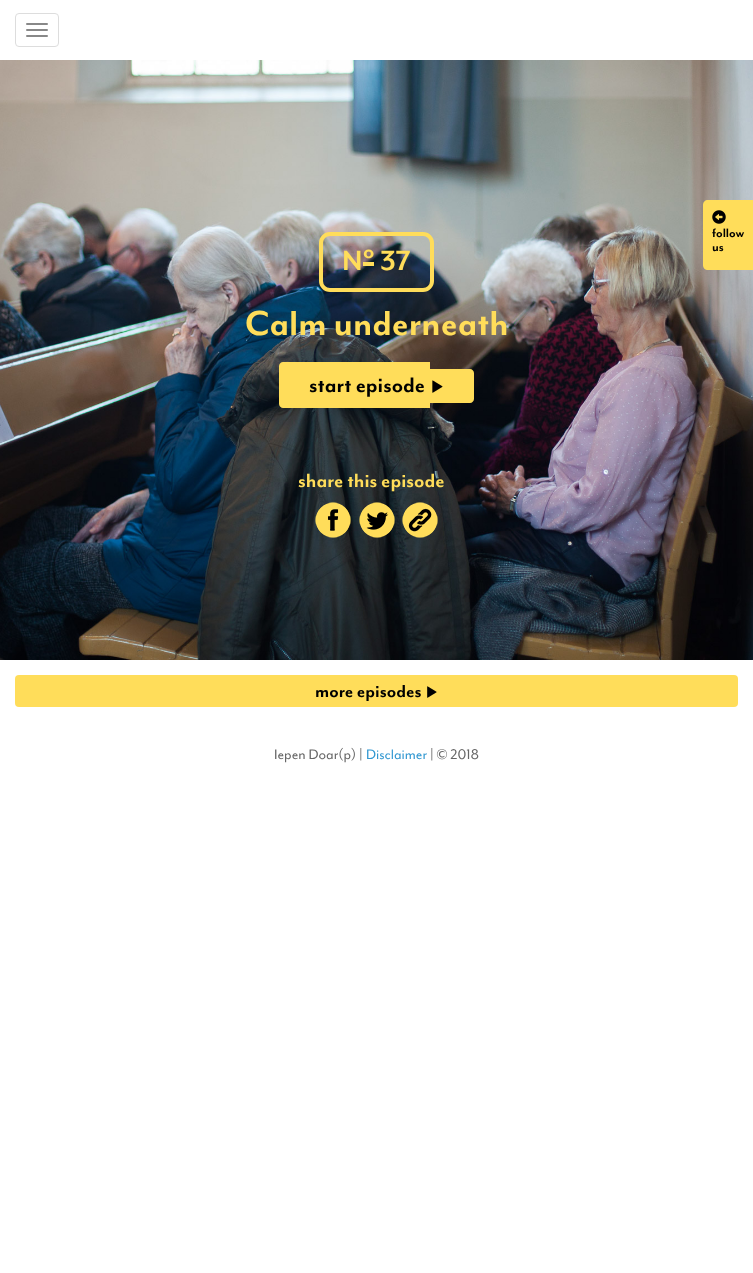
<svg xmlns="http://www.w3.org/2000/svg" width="753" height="1273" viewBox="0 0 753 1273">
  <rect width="100%" height="100%" fill="rgb(255,255,255)"/>
  <rect x="15.5" y="13.5" width="43" height="33" rx="3.5" fill="none" stroke="rgb(221,221,221)"/>
  <rect x="26" y="23" width="22" height="2" rx="1" fill="rgb(136,136,136)"/>
  <rect x="26" y="29" width="22" height="2" rx="1" fill="rgb(136,136,136)"/>
  <rect x="26" y="35" width="22" height="2" rx="1" fill="rgb(136,136,136)"/>
  <image x="0" y="60" width="753" height="600" href="pic2.png"/>
  <path d="M708 200H753V270H708C705 270 703 268 703 265V205C703 202 705 200 708 200Z" fill="rgb(255,221,90)"/>
  <image x="712" y="210" width="14" height="14" href="pic1.png"/>
  <g font-family="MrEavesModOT" font-size="14" font-weight="bold" fill="rgb(0,0,0)">
    <text>
      <tspan x="712" y="237">follow</tspan>
      <tspan x="712" y="251">us</tspan>
    </text>
  </g>
  <rect x="321" y="234" width="111" height="56" rx="9" fill="none" stroke="rgb(255,221,90)" stroke-width="4"/>
  <text x="342" y="270" font-family="MrEavesModOT" font-size="32" font-weight="bold" fill="rgb(255,221,90)">N</text>
  <rect x="363" y="262" width="11" height="4" fill="rgb(255,221,90)"/>
  <text x="363" y="258" font-family="MrEavesModOT" font-size="24" font-weight="bold" fill="rgb(255,221,90)">o</text>
  <text x="380" y="270" font-family="MrEavesModOT" font-size="32" font-weight="bold" fill="rgb(255,221,90)">37</text>
  <text x="245" y="335" font-family="MrEavesModOT" font-size="40" font-weight="bold" fill="rgb(255,221,90)">Calm underneath</text>
  <path d="M283 362H430V408H283C281 408 279 406 279 404V366C279 364 281 362 283 362Z" fill="rgb(255,221,90)"/>
  <path d="M430 369H470C472 369 474 371 474 373V399C474 401 472 403 470 403H430Z" fill="rgb(255,221,90)"/>
  <text x="309" y="392" font-family="MrEavesModOT" font-size="24" font-weight="bold" fill="rgb(0,0,0)">start episode</text>
  <image x="432" y="380" width="11" height="13" href="pic3.png"/>
  <text x="298" y="487" font-family="MrEavesModOT" font-size="22" font-weight="bold" fill="rgb(255,221,90)">share this episode</text>
  <image x="315" y="502" width="36" height="36" href="pic4.png"/>
  <image x="359" y="502" width="36" height="36" href="pic5.png"/>
  <image x="402" y="502" width="36" height="36" href="pic6.png"/>
  <rect x="15" y="675" width="723" height="32" rx="4" fill="rgb(255,221,90)"/>
  <text x="315" y="697" font-family="MrEavesModOT" font-size="20" font-weight="bold" fill="rgb(0,0,0)">more episodes</text>
  <image x="427" y="686" width="10" height="12" href="pic7.png"/>
  <text x="274" y="759" font-family="MrEavesModOT" font-size="16" fill="rgb(102,102,102)">Iepen Doar(p) |</text>
  <text x="366" y="759" font-family="MrEavesModOT" font-size="16" fill="rgb(48,151,209)">Disclaimer</text>
  <text x="430" y="759" font-family="MrEavesModOT" font-size="16" fill="rgb(102,102,102)">| © 2018</text>
</svg>
